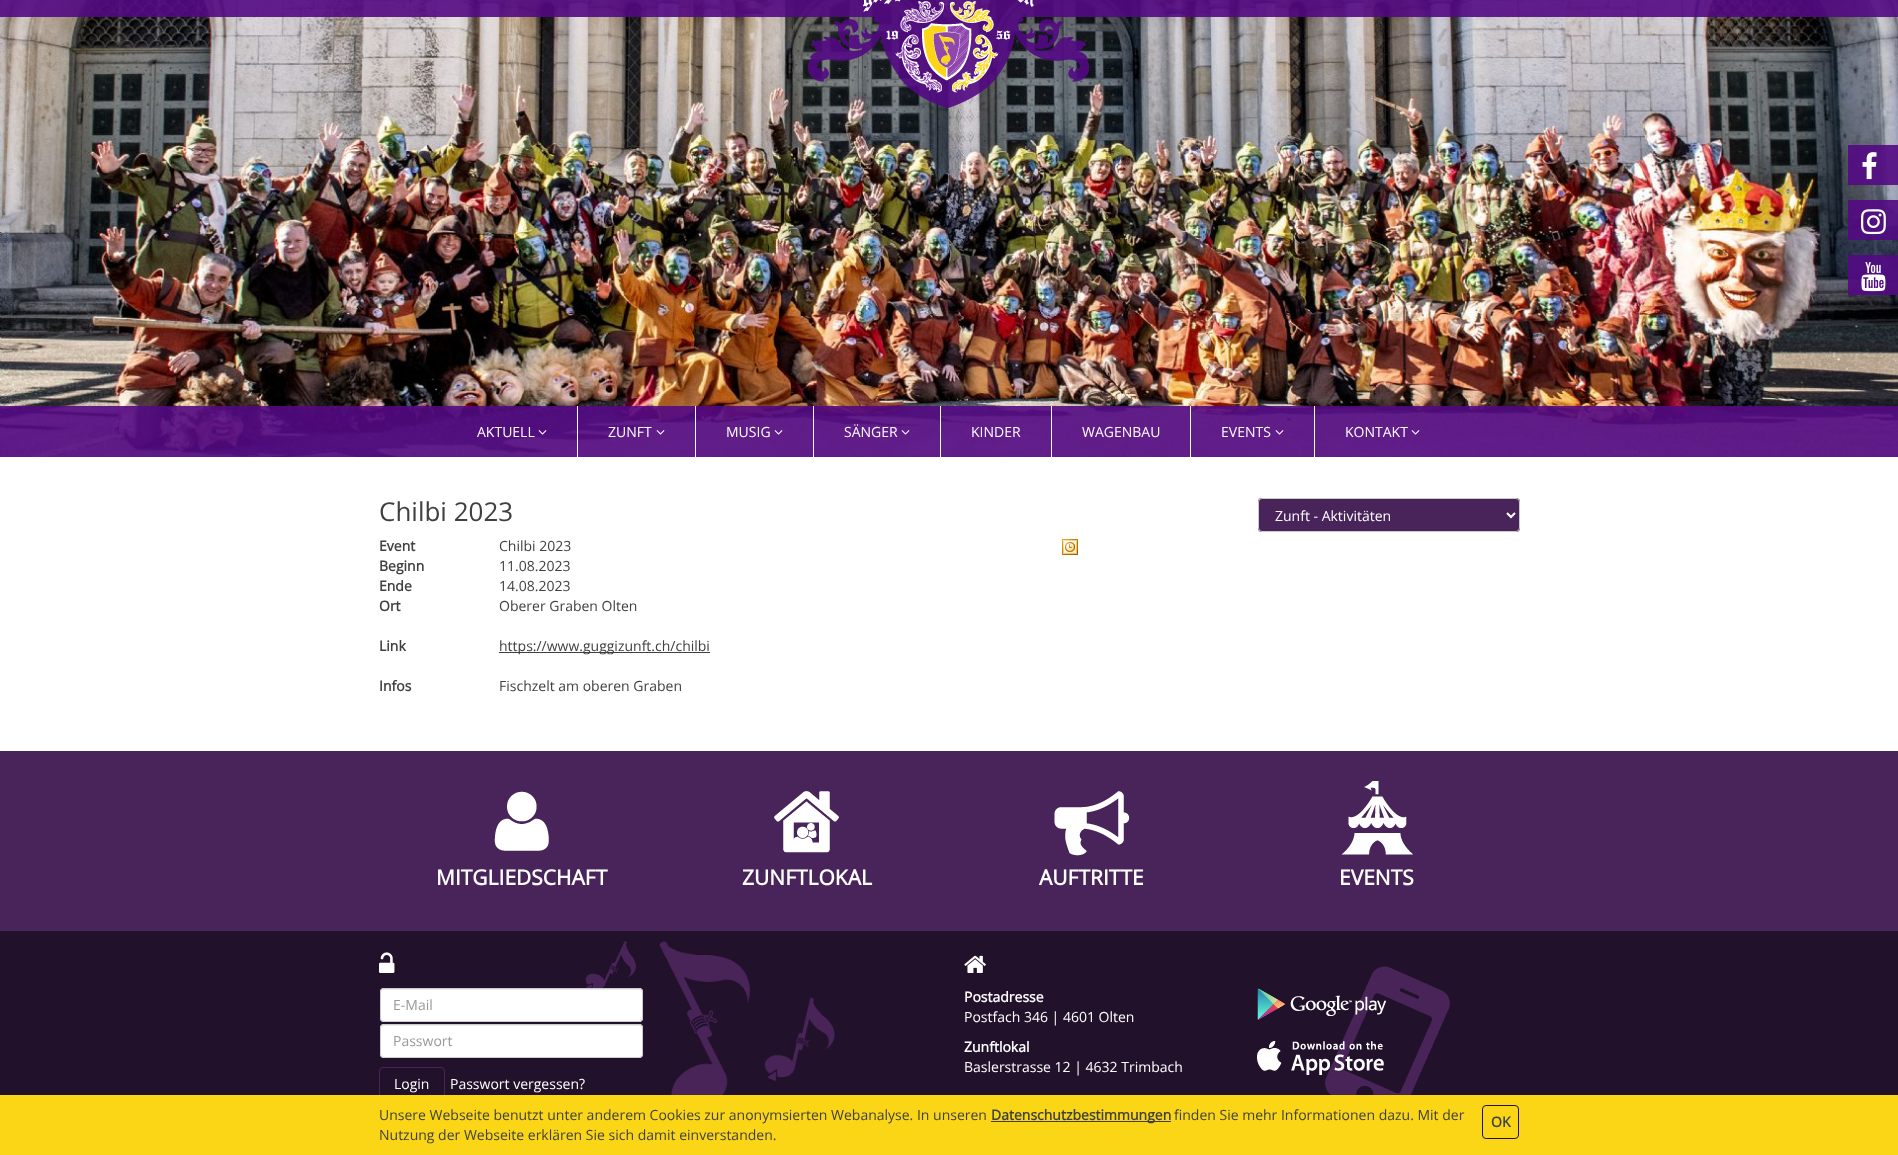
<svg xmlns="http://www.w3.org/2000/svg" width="1898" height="1155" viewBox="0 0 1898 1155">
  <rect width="100%" height="100%" fill="rgb(255,255,255)"/>
  <image x="0" y="0" width="1898" height="457" href="pic1.png"/>
  <rect x="0" y="0" width="1898" height="17" fill="rgba(83,10,131,0.9)"/>
  <image x="807" y="17" width="283" height="91" href="pic3.png"/>
  <image x="863" y="0" width="171" height="93" href="pic2.png"/>
  <rect x="1848" y="145" width="50" height="40" fill="rgba(83,10,131,0.9)"/>
  <image x="1862" y="152" width="15" height="28" href="pic4.png"/>
  <rect x="1848" y="200" width="50" height="40" fill="rgba(83,10,131,0.9)"/>
  <image x="1861" y="209" width="25" height="26" href="pic5.png"/>
  <rect x="1848" y="255" width="50" height="40" fill="rgba(83,10,131,0.9)"/>
  <image x="1861" y="262" width="25" height="30" href="pic6.png"/>
  <rect x="0" y="406" width="1898" height="51" fill="rgba(83,10,131,0.9)"/>
  <rect x="577" y="406" width="1" height="51" fill="rgb(255,255,255)"/>
  <text x="477" y="437" font-family="Open Sans" font-size="14" fill="rgb(255,255,255)">AKTUELL</text>
  <image x="538" y="430" width="9" height="5" href="pic7.png"/>
  <rect x="695" y="406" width="1" height="51" fill="rgb(255,255,255)"/>
  <text x="608" y="437" font-family="Open Sans" font-size="14" fill="rgb(255,255,255)">ZUNFT</text>
  <image x="656" y="430" width="9" height="5" href="pic8.png"/>
  <rect x="813" y="406" width="1" height="51" fill="rgb(255,255,255)"/>
  <text x="726" y="437" font-family="Open Sans" font-size="14" fill="rgb(255,255,255)">MUSIG</text>
  <image x="774" y="430" width="9" height="5" href="pic9.png"/>
  <rect x="940" y="406" width="1" height="51" fill="rgb(255,255,255)"/>
  <text x="844" y="437" font-family="Open Sans" font-size="14" fill="rgb(255,255,255)">SÄNGER</text>
  <image x="901" y="430" width="9" height="5" href="pic10.png"/>
  <rect x="1051" y="406" width="1" height="51" fill="rgb(255,255,255)"/>
  <text x="971" y="437" font-family="Open Sans" font-size="14" fill="rgb(255,255,255)">KINDER</text>
  <rect x="1190" y="406" width="1" height="51" fill="rgb(255,255,255)"/>
  <text x="1082" y="437" font-family="Open Sans" font-size="14" fill="rgb(255,255,255)">WAGENBAU</text>
  <rect x="1314" y="406" width="1" height="51" fill="rgb(255,255,255)"/>
  <text x="1221" y="437" font-family="Open Sans" font-size="14" fill="rgb(255,255,255)">EVENTS</text>
  <image x="1275" y="430" width="9" height="5" href="pic11.png"/>
  <text x="1345" y="437" font-family="Open Sans" font-size="14" fill="rgb(255,255,255)">KONTAKT</text>
  <image x="1411" y="430" width="9" height="5" href="pic12.png"/>
  <text x="379" y="521" font-family="Open Sans" font-size="26" fill="rgb(64,64,64)">Chilbi 2023</text>
  <rect x="1258" y="498" width="262" height="34" rx="4" fill="rgb(73,36,90)"/>
  <path d="M1262 500H1517L1519 501V503V502C1519 500 1518 499 1516 499H1262C1260 499 1259 500 1259 502V503C1259 501 1260 500 1262 500Z" fill="rgb(68,33,83)"/>
  <rect x="1258.5" y="498.5" width="261" height="33" rx="3.5" fill="none" stroke="rgb(204,204,204)"/>
  <path d="M1507 513L1511 517L1515 513" fill="none" stroke="rgb(255,255,255)" stroke-width="2"/>
  <text x="1275" y="521" font-family="Open Sans" font-size="14" fill="rgb(255,255,255)">Zunft - Aktivitäten</text>
  <text x="379" y="551" font-family="Open Sans" font-size="14" font-weight="bold" fill="rgb(64,64,64)">Event</text>
  <text x="499" y="551" font-family="Open Sans" font-size="14" fill="rgb(64,64,64)">Chilbi 2023</text>
  <text x="379" y="571" font-family="Open Sans" font-size="14" font-weight="bold" fill="rgb(64,64,64)">Beginn</text>
  <text x="499" y="571" font-family="Open Sans" font-size="14" fill="rgb(64,64,64)">11.08.2023</text>
  <text x="379" y="591" font-family="Open Sans" font-size="14" font-weight="bold" fill="rgb(64,64,64)">Ende</text>
  <text x="499" y="591" font-family="Open Sans" font-size="14" fill="rgb(64,64,64)">14.08.2023</text>
  <text x="379" y="611" font-family="Open Sans" font-size="14" font-weight="bold" fill="rgb(64,64,64)">Ort</text>
  <text x="499" y="611" font-family="Open Sans" font-size="14" fill="rgb(64,64,64)">Oberer Graben Olten</text>
  <text x="379" y="651" font-family="Open Sans" font-size="14" font-weight="bold" fill="rgb(64,64,64)">Link</text>
  <rect x="499" y="652" width="211" height="1" fill="rgb(64,64,64)"/>
  <text x="499" y="651" font-family="Open Sans" font-size="14" fill="rgb(64,64,64)">https://www.guggizunft.ch/chilbi</text>
  <text x="379" y="691" font-family="Open Sans" font-size="14" font-weight="bold" fill="rgb(64,64,64)">Infos</text>
  <text x="499" y="691" font-family="Open Sans" font-size="14" fill="rgb(64,64,64)">Fischzelt am oberen Graben</text>
  <image x="1062" y="539" width="16" height="16" href="pic13.png"/>
  <rect x="0" y="751" width="1898" height="180" fill="rgb(73,36,90)"/>
  <image x="494" y="791" width="55" height="60" href="pic14.png"/>
  <text x="436" y="885" font-family="Open Sans" font-size="21" font-weight="bold" fill="rgb(255,255,255)">MITGLIEDSCHAFT</text>
  <image x="774" y="791" width="65" height="62" href="pic15.png"/>
  <text x="742" y="885" font-family="Open Sans" font-size="21" font-weight="bold" fill="rgb(255,255,255)">ZUNFTLOKAL</text>
  <image x="1054" y="791" width="76" height="65" href="pic16.png"/>
  <text x="1039" y="885" font-family="Open Sans" font-size="21" font-weight="bold" fill="rgb(255,255,255)">AUFTRITTE</text>
  <image x="1341" y="781" width="72" height="74" href="pic17.png"/>
  <text x="1339" y="885" font-family="Open Sans" font-size="21" font-weight="bold" fill="rgb(255,255,255)">EVENTS</text>
  <rect x="0" y="931" width="1898" height="164" fill="rgb(34,17,43)"/>
  <image x="379" y="952" width="16" height="21" href="pic18.png"/>
  <image x="585" y="941" width="51" height="47" href="pic19.png"/>
  <rect x="380" y="988" width="263" height="34" rx="4" fill="rgb(255,255,255)"/>
  <path d="M384 990H640L642 991V993V992C642 990 641 989 639 989H384C382 989 381 990 381 992V993C381 991 382 990 384 990Z" fill="rgb(236,236,236)"/>
  <rect x="380.5" y="988.5" width="262" height="33" rx="3.5" fill="none" stroke="rgb(204,204,204)"/>
  <text x="393" y="1010" font-family="Open Sans" font-size="14" fill="rgb(153,153,153)">E-Mail</text>
  <rect x="380" y="1024" width="263" height="34" rx="4" fill="rgb(255,255,255)"/>
  <path d="M384 1026H640L642 1027V1029V1028C642 1026 641 1025 639 1025H384C382 1025 381 1026 381 1028V1029C381 1027 382 1026 384 1026Z" fill="rgb(236,236,236)"/>
  <rect x="380.5" y="1024.5" width="262" height="33" rx="3.5" fill="none" stroke="rgb(204,204,204)"/>
  <text x="393" y="1046" font-family="Open Sans" font-size="14" fill="rgb(153,153,153)">Passwort</text>
  <rect x="379.5" y="1067.5" width="65" height="33" rx="3.5" fill="none" stroke="rgb(73,36,89)"/>
  <g font-family="Open Sans" font-size="14" fill="rgb(255,255,255)">
    <text x="394" y="1089">Login</text>
    <text x="450" y="1089">Passwort vergessen?</text>
  </g>
  <image x="659" y="941" width="91" height="154" href="pic20.png"/>
  <image x="764" y="997" width="71" height="84" href="pic21.png"/>
  <image x="964" y="955" width="22" height="18" href="pic22.png"/>
  <text x="964" y="1002" font-family="Open Sans" font-size="14" font-weight="bold" fill="rgb(255,255,255)">Postadresse</text>
  <text x="964" y="1022" font-family="Open Sans" font-size="14" fill="rgb(255,255,255)">Postfach 346 | 4601 Olten</text>
  <text x="964" y="1052" font-family="Open Sans" font-size="14" font-weight="bold" fill="rgb(255,255,255)">Zunftlokal</text>
  <text x="964" y="1072" font-family="Open Sans" font-size="14" fill="rgb(255,255,255)">Baslerstrasse 12 | 4632 Trimbach</text>
  <image x="1325" y="966" width="125" height="129" href="pic23.png"/>
  <image x="1257" y="988" width="130" height="32" href="pic24.png"/>
  <image x="1257" y="1041" width="127" height="34" href="pic25.png"/>
  <rect x="0" y="1095" width="1898" height="60" fill="rgb(250,214,23)"/>
  <text x="379" y="1120" font-family="Open Sans" font-size="14" fill="rgb(64,64,64)">Unsere Webseite benutzt unter anderem Cookies zur anonymsierten Webanalyse. In unseren</text>
  <rect x="991" y="1121" width="180" height="1" fill="rgb(64,64,64)"/>
  <text x="991" y="1120" font-family="Open Sans" font-size="14" font-weight="bold" fill="rgb(64,64,64)">Datenschutzbestimmungen</text>
  <g font-family="Open Sans" font-size="14" fill="rgb(64,64,64)">
    <text x="1174" y="1120">finden Sie mehr Informationen dazu. Mit der</text>
    <text x="379" y="1140">Nutzung der Webseite erklären Sie sich damit einverstanden.</text>
  </g>
  <rect x="1482.5" y="1105.5" width="36" height="33" rx="3.5" fill="none" stroke="rgb(34,17,43)"/>
  <text x="1491" y="1127" font-family="Open Sans" font-size="14" font-weight="bold" fill="rgb(64,64,64)">OK</text>
</svg>
